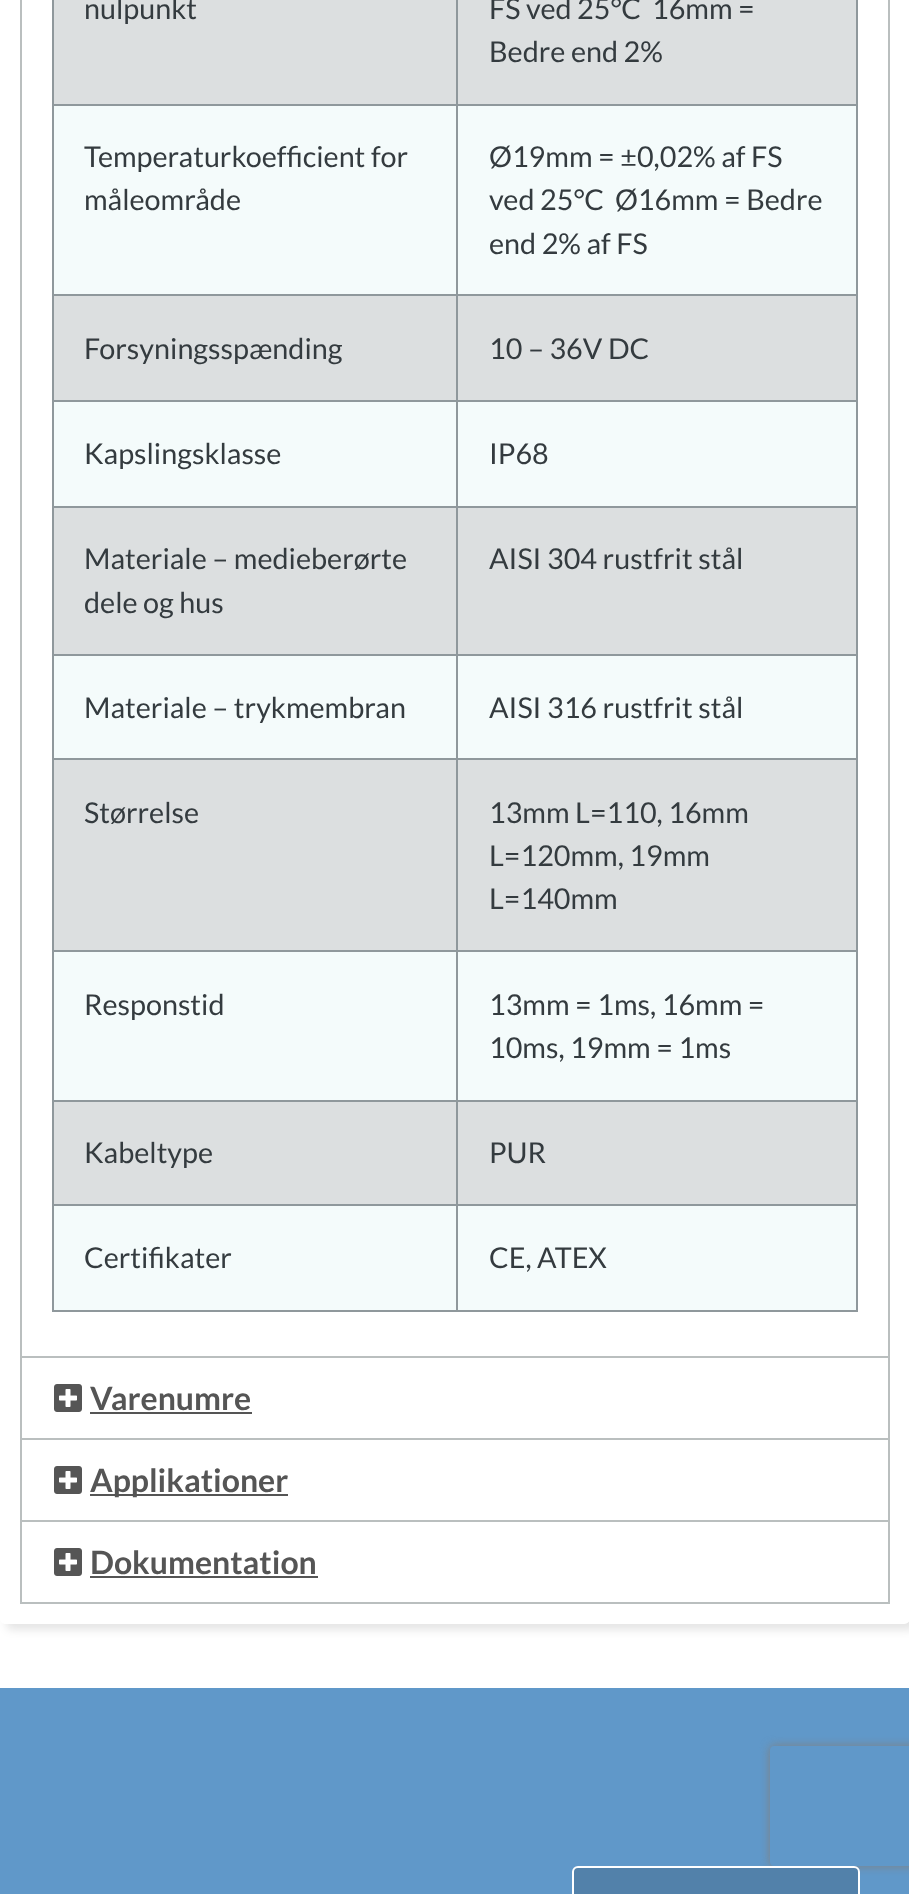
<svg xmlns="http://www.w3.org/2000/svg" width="909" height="1894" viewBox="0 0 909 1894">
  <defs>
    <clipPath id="clip1"><path d="M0 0H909V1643H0ZM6-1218H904C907.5-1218 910-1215.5 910-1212V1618C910 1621.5 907.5 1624 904 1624H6C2.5 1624 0 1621.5 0 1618V-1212C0-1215.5 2.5-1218 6-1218Z" clip-rule="evenodd"/></clipPath>
    <clipPath id="clip2"><path d="M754 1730H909V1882H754ZM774 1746H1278C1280 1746 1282 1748 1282 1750V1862C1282 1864 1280 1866 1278 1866H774C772 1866 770 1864 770 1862V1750C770 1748 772 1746 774 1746Z" clip-rule="evenodd"/></clipPath>
  </defs>
  <rect width="100%" height="100%" fill="rgb(255,255,255)"/>
  <g clip-path="url(#clip1)">
    <rect x="6" y="-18" width="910" height="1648" rx="6" fill="rgba(0,0,0,0.1)" filter="blur(4px)"/>
  </g>
  <rect x="21" y="-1" width="868" height="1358" fill="none" stroke="rgb(186,191,191)" stroke-width="2"/>
  <rect x="54" y="0" width="402" height="104" fill="rgb(220,223,224)"/>
  <text x="84" y="19" font-family="Lato" font-size="28.75" fill="rgb(52,59,63)">nulpunkt</text>
  <rect x="458" y="0" width="398" height="104" fill="rgb(220,223,224)"/>
  <rect x="456" y="104" width="402" height="2" fill="rgb(143,152,156)"/>
  <rect x="54" y="106" width="802" height="188" fill="rgb(244,251,251)"/>
  <rect x="456" y="294" width="402" height="2" fill="rgb(143,152,156)"/>
  <rect x="456" y="400" width="402" height="2" fill="rgb(143,152,156)"/>
  <rect x="54" y="402" width="802" height="104" fill="rgb(244,251,251)"/>
  <rect x="456" y="506" width="402" height="2" fill="rgb(143,152,156)"/>
  <rect x="456" y="654" width="402" height="2" fill="rgb(143,152,156)"/>
  <rect x="54" y="656" width="802" height="102" fill="rgb(244,251,251)"/>
  <rect x="456" y="758" width="402" height="2" fill="rgb(143,152,156)"/>
  <rect x="456" y="950" width="402" height="2" fill="rgb(143,152,156)"/>
  <rect x="54" y="952" width="802" height="148" fill="rgb(244,251,251)"/>
  <rect x="456" y="1100" width="402" height="2" fill="rgb(143,152,156)"/>
  <rect x="456" y="1204" width="402" height="2" fill="rgb(143,152,156)"/>
  <rect x="54" y="1206" width="802" height="104" fill="rgb(244,251,251)"/>
  <rect x="856" y="1204" width="2" height="108" fill="rgb(143,152,156)"/>
  <rect x="456" y="1310" width="402" height="2" fill="rgb(143,152,156)"/>
  <rect x="456" y="1204" width="2" height="108" fill="rgb(143,152,156)"/>
  <rect x="52" y="1204" width="406" height="2" fill="rgb(143,152,156)"/>
  <rect x="456" y="1100" width="2" height="106" fill="rgb(143,152,156)"/>
  <rect x="52" y="1100" width="406" height="2" fill="rgb(143,152,156)"/>
  <rect x="456" y="950" width="2" height="152" fill="rgb(143,152,156)"/>
  <rect x="52" y="950" width="406" height="2" fill="rgb(143,152,156)"/>
  <rect x="456" y="758" width="2" height="194" fill="rgb(143,152,156)"/>
  <rect x="52" y="758" width="406" height="2" fill="rgb(143,152,156)"/>
  <rect x="456" y="654" width="2" height="106" fill="rgb(143,152,156)"/>
  <rect x="52" y="654" width="406" height="2" fill="rgb(143,152,156)"/>
  <rect x="456" y="506" width="2" height="150" fill="rgb(143,152,156)"/>
  <rect x="52" y="506" width="406" height="2" fill="rgb(143,152,156)"/>
  <rect x="456" y="400" width="2" height="108" fill="rgb(143,152,156)"/>
  <rect x="52" y="400" width="406" height="2" fill="rgb(143,152,156)"/>
  <rect x="456" y="294" width="2" height="108" fill="rgb(143,152,156)"/>
  <rect x="52" y="294" width="406" height="2" fill="rgb(143,152,156)"/>
  <rect x="456" y="104" width="2" height="192" fill="rgb(143,152,156)"/>
  <rect x="52" y="104" width="406" height="2" fill="rgb(143,152,156)"/>
  <rect x="456" y="0" width="2" height="106" fill="rgb(143,152,156)"/>
  <g font-family="Lato" font-size="28.75" fill="rgb(52,59,63)">
    <text xml:space="preserve"><tspan x="489" y="19">FS ved 25°C  16mm =</tspan><tspan x="489" y="62">Bedre end 2%</tspan></text>
  </g>
  <rect x="52" y="1310" width="406" height="2" fill="rgb(143,152,156)"/>
  <rect x="52" y="1204" width="2" height="108" fill="rgb(143,152,156)"/>
  <rect x="52" y="1100" width="2" height="106" fill="rgb(143,152,156)"/>
  <rect x="52" y="950" width="2" height="152" fill="rgb(143,152,156)"/>
  <rect x="52" y="758" width="2" height="194" fill="rgb(143,152,156)"/>
  <rect x="52" y="654" width="2" height="106" fill="rgb(143,152,156)"/>
  <rect x="52" y="506" width="2" height="150" fill="rgb(143,152,156)"/>
  <rect x="52" y="400" width="2" height="108" fill="rgb(143,152,156)"/>
  <rect x="52" y="294" width="2" height="108" fill="rgb(143,152,156)"/>
  <rect x="52" y="0" width="2" height="296" fill="rgb(143,152,156)"/>
  <g font-family="Lato" font-size="28.75" fill="rgb(52,59,63)">
    <text>
      <tspan x="84" y="167">Temperaturkoefficient for</tspan>
      <tspan x="84" y="210">måleområde</tspan>
    </text>
  </g>
  <rect x="856" y="1100" width="2" height="106" fill="rgb(143,152,156)"/>
  <rect x="856" y="950" width="2" height="152" fill="rgb(143,152,156)"/>
  <rect x="856" y="758" width="2" height="194" fill="rgb(143,152,156)"/>
  <rect x="856" y="654" width="2" height="106" fill="rgb(143,152,156)"/>
  <rect x="856" y="506" width="2" height="150" fill="rgb(143,152,156)"/>
  <rect x="856" y="400" width="2" height="108" fill="rgb(143,152,156)"/>
  <rect x="856" y="294" width="2" height="108" fill="rgb(143,152,156)"/>
  <rect x="856" y="0" width="2" height="296" fill="rgb(143,152,156)"/>
  <g font-family="Lato" font-size="28.75" fill="rgb(52,59,63)">
    <text xml:space="preserve"><tspan x="489" y="167">Ø19mm = ±0,02% af FS</tspan><tspan x="489" y="210">ved 25°C  Ø16mm = Bedre</tspan><tspan x="489" y="254">end 2% af FS</tspan></text>
  </g>
  <rect x="54" y="296" width="402" height="104" fill="rgb(220,223,224)"/>
  <text x="84" y="359" font-family="Lato" font-size="28.75" fill="rgb(52,59,63)">Forsyningsspænding</text>
  <rect x="458" y="296" width="398" height="104" fill="rgb(220,223,224)"/>
  <g font-family="Lato" font-size="28.75" fill="rgb(52,59,63)">
    <text x="489" y="359">10 – 36V DC</text>
    <text x="84" y="464">Kapslingsklasse</text>
    <text x="489" y="464">IP68</text>
  </g>
  <rect x="54" y="508" width="402" height="146" fill="rgb(220,223,224)"/>
  <g font-family="Lato" font-size="28.75" fill="rgb(52,59,63)">
    <text>
      <tspan x="84" y="569">Materiale – medieberørte</tspan>
      <tspan x="84" y="613">dele og hus</tspan>
    </text>
  </g>
  <rect x="458" y="508" width="398" height="146" fill="rgb(220,223,224)"/>
  <g font-family="Lato" font-size="28.75" fill="rgb(52,59,63)">
    <text x="489" y="569">AISI 304 rustfrit stål</text>
    <text x="84" y="718">Materiale – trykmembran</text>
    <text x="489" y="718">AISI 316 rustfrit stål</text>
  </g>
  <rect x="54" y="760" width="402" height="190" fill="rgb(220,223,224)"/>
  <text x="84" y="823" font-family="Lato" font-size="28.75" fill="rgb(52,59,63)">Størrelse</text>
  <rect x="458" y="760" width="398" height="190" fill="rgb(220,223,224)"/>
  <g font-family="Lato" font-size="28.75" fill="rgb(52,59,63)">
    <text>
      <tspan x="489" y="823">13mm L=110, 16mm</tspan>
      <tspan x="489" y="866">L=120mm, 19mm</tspan>
      <tspan x="489" y="909">L=140mm</tspan>
    </text>
    <text x="84" y="1015">Responstid</text>
    <text>
      <tspan x="489" y="1015">13mm = 1ms, 16mm =</tspan>
      <tspan x="489" y="1058">10ms, 19mm = 1ms</tspan>
    </text>
  </g>
  <rect x="54" y="1102" width="402" height="102" fill="rgb(220,223,224)"/>
  <text x="84" y="1163" font-family="Lato" font-size="28.75" fill="rgb(52,59,63)">Kabeltype</text>
  <rect x="458" y="1102" width="398" height="102" fill="rgb(220,223,224)"/>
  <g font-family="Lato" font-size="28.75" fill="rgb(52,59,63)">
    <text x="489" y="1163">PUR</text>
    <text x="84" y="1268">Certifikater</text>
    <text x="489" y="1268">CE, ATEX</text>
  </g>
  <rect x="888" y="1358" width="2" height="246" fill="rgb(186,191,191)"/>
  <rect x="20" y="1438" width="870" height="2" fill="rgb(186,191,191)"/>
  <rect x="20" y="1358" width="2" height="82" fill="rgb(186,191,191)"/>
  <image x="54" y="1384" width="28" height="28" href="pic1.png"/>
  <text x="90" y="1410" font-family="Lato" font-size="32" font-weight="bold" fill="rgb(85,85,85)">Varenumre</text>
  <rect x="90" y="1412" width="162" height="2" fill="rgb(85,85,85)"/>
  <rect x="20" y="1520" width="870" height="2" fill="rgb(186,191,191)"/>
  <rect x="20" y="1440" width="2" height="82" fill="rgb(186,191,191)"/>
  <image x="54" y="1466" width="28" height="28" href="pic1.png"/>
  <rect x="90" y="1494" width="198" height="2" fill="rgb(85,85,85)"/>
  <text x="90" y="1492" font-family="Lato" font-size="32" font-weight="bold" fill="rgb(85,85,85)">Applikationer</text>
  <rect x="20" y="1602" width="870" height="2" fill="rgb(186,191,191)"/>
  <rect x="20" y="1522" width="2" height="82" fill="rgb(186,191,191)"/>
  <image x="54" y="1548" width="28" height="28" href="pic1.png"/>
  <text x="90" y="1574" font-family="Lato" font-size="32" font-weight="bold" fill="rgb(85,85,85)">Dokumentation</text>
  <rect x="90" y="1576" width="228" height="2" fill="rgb(85,85,85)"/>
  <rect x="0" y="1688" width="909" height="206" fill="rgb(96,152,201)"/>
  <g clip-path="url(#clip2)">
    <rect x="770" y="1746" width="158" height="120" rx="4" fill="rgb(128,128,128)" filter="blur(5px)"/>
  </g>
  <rect x="573" y="1867" width="286" height="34" rx="5" fill="rgb(82,129,170)" stroke="rgb(255,255,255)" stroke-width="2"/>
</svg>
